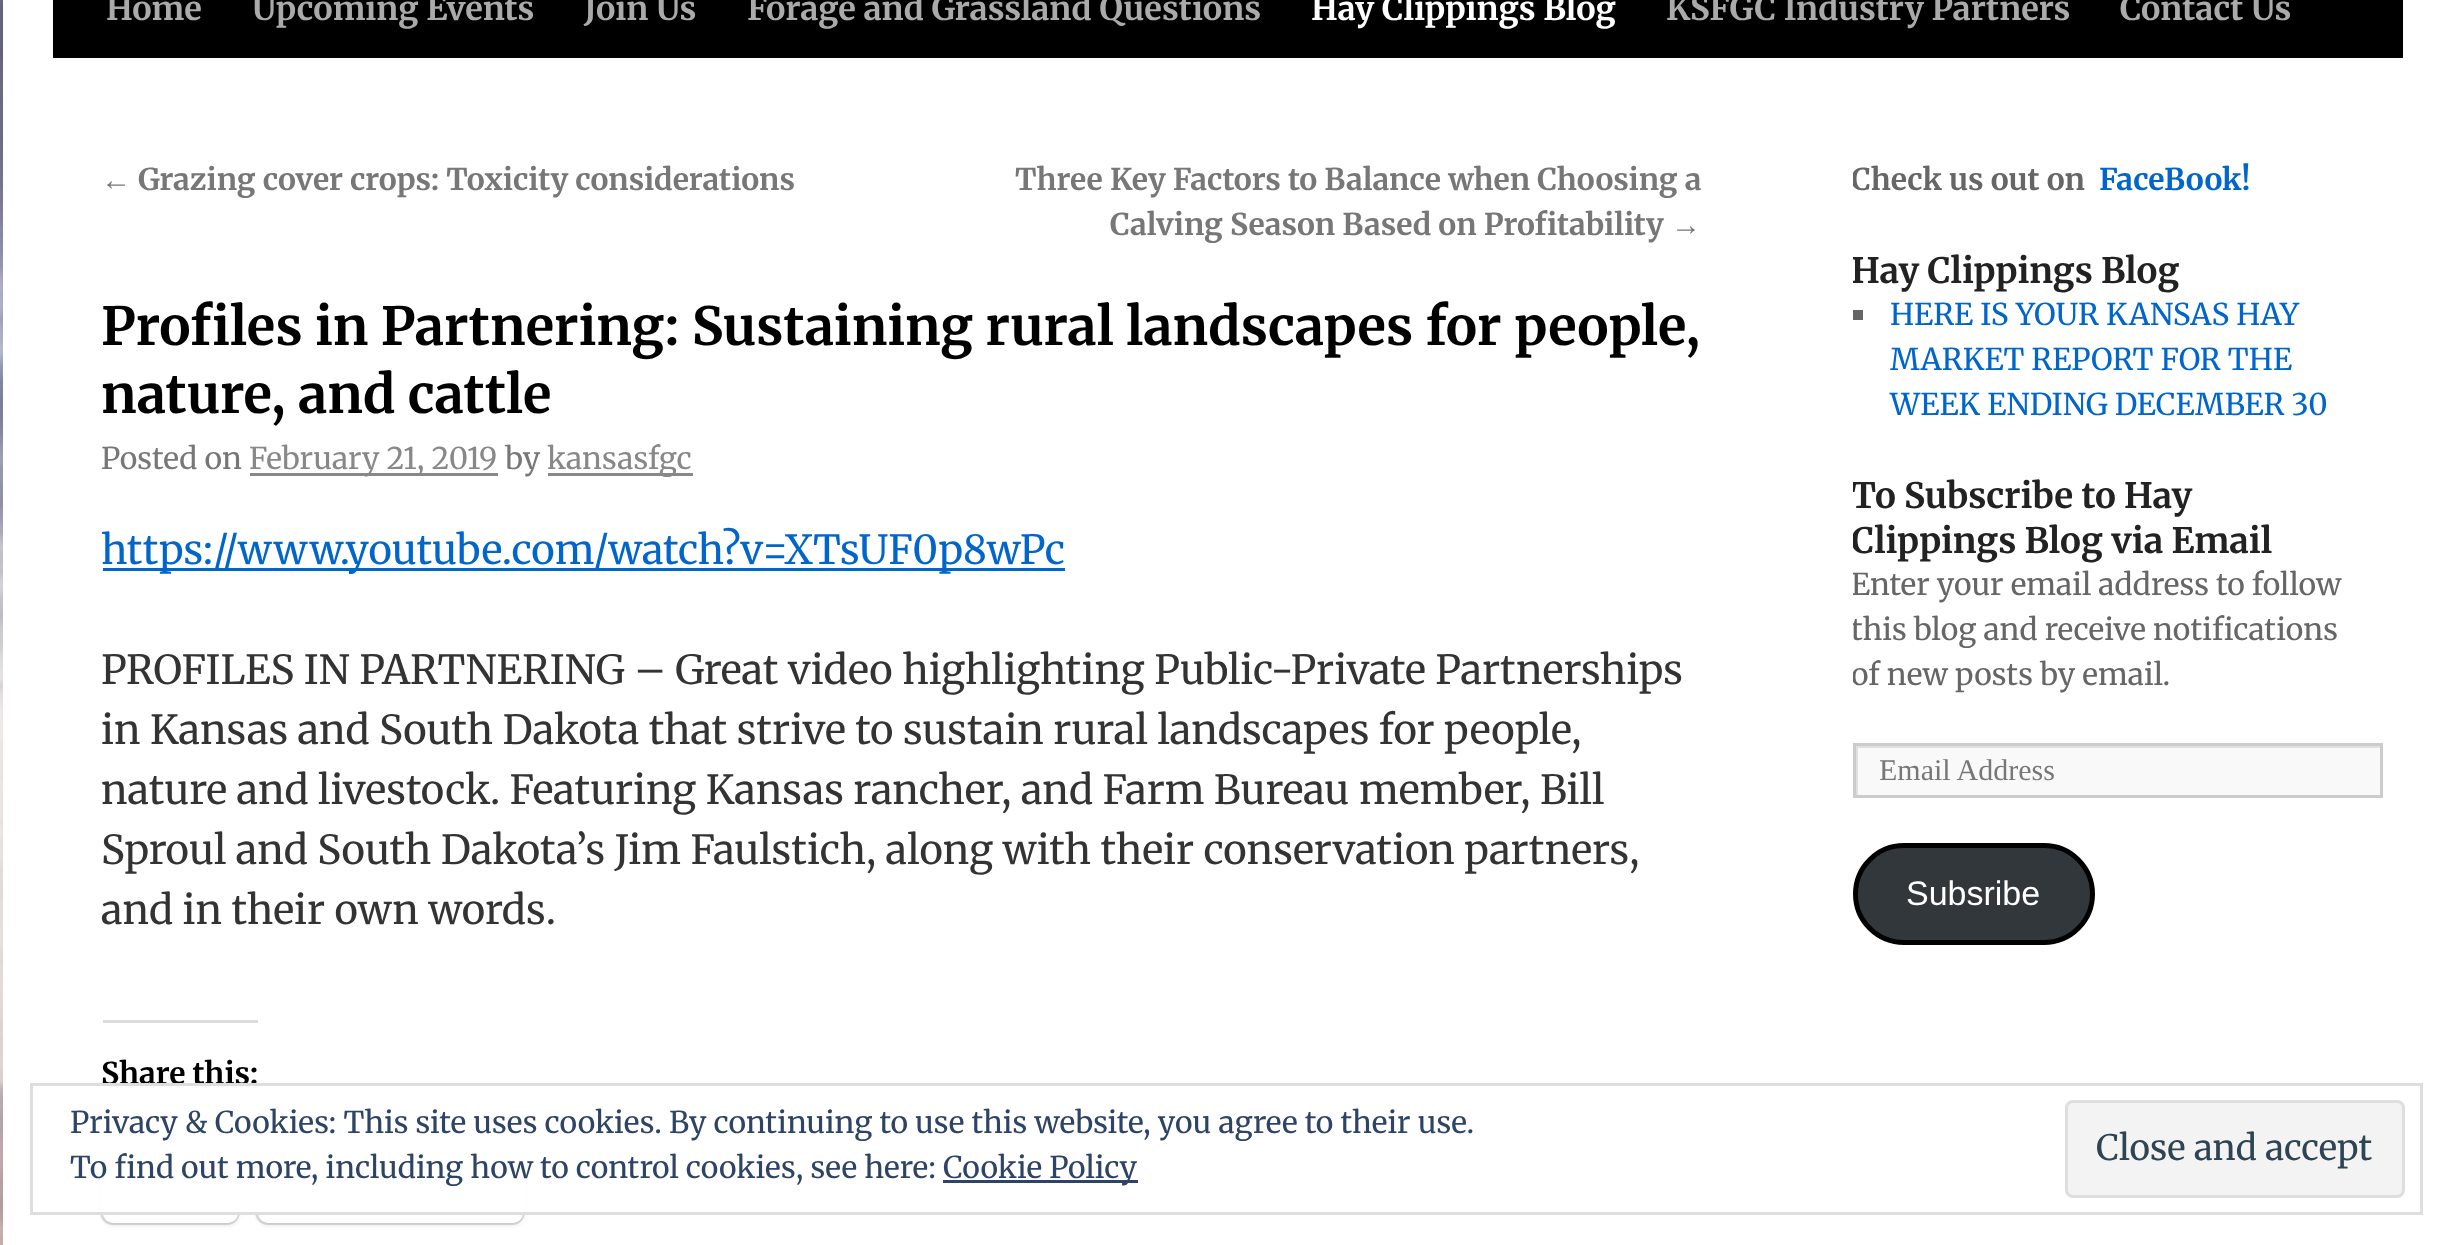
<svg xmlns="http://www.w3.org/2000/svg" width="2451" height="1245" viewBox="0 0 2451 1245">
  <defs>
    <clipPath id="clip1"><rect x="1853" y="158" width="550" height="832"/></clipPath>
    <clipPath id="clip2"><rect x="1855" y="745" width="525" height="50"/></clipPath>
    <clipPath id="clip3"><rect x="1880" y="753" width="475" height="37"/></clipPath>
  </defs>
  <rect width="100%" height="100%" fill="rgb(255,255,255)"/>
  <image x="0" y="0" width="3" height="1245" href="pic1.png"/>
  <rect x="53" y="0" width="2350" height="58" fill="rgb(0,0,0)"/>
  <g font-family="Merriweather" font-size="32.5" font-weight="bold" fill="rgb(170,170,170)">
    <text x="106" y="20">Home</text>
    <text x="252" y="20">Upcoming Events</text>
    <text x="584" y="20">Join Us</text>
    <text x="747" y="20">Forage and Grassland Questions</text>
  </g>
  <text x="1311" y="20" font-family="Merriweather" font-size="32.5" font-weight="bold" fill="rgb(255,255,255)">Hay Clippings Blog</text>
  <g font-family="Merriweather" font-size="32.5" font-weight="bold" fill="rgb(170,170,170)">
    <text x="1666" y="20">KSFGC Industry Partners</text>
    <text x="2120" y="20">Contact Us</text>
  </g>
  <text x="101" y="190" font-family="Liberation Serif" font-size="30" font-weight="bold" fill="rgb(119,119,119)">←</text>
  <g font-family="Merriweather" font-size="30" font-weight="bold" fill="rgb(119,119,119)">
    <text x="138" y="190">Grazing cover crops: Toxicity considerations</text>
    <text x="1015" y="190">Three Key Factors to Balance when Choosing a</text>
    <text x="1110" y="235">Calving Season Based on Profitability</text>
  </g>
  <text x="1671" y="235" font-family="Liberation Serif" font-size="30" font-weight="bold" fill="rgb(119,119,119)">→</text>
  <g font-family="Merriweather" font-size="52.5" font-weight="bold" fill="rgb(0,0,0)">
    <text>
      <tspan x="101" y="345">Profiles in Partnering: Sustaining rural landscapes for people,</tspan>
      <tspan x="101" y="413">nature, and cattle</tspan>
    </text>
  </g>
  <text x="101" y="469" font-family="Merriweather" font-size="30" fill="rgb(119,119,119)">Posted on</text>
  <rect x="250" y="473" width="248" height="3" fill="rgb(136,136,136)"/>
  <text x="249" y="469" font-family="Merriweather" font-size="30" fill="rgb(136,136,136)">February 21, 2019</text>
  <text x="505" y="469" font-family="Merriweather" font-size="30" fill="rgb(119,119,119)">by</text>
  <rect x="548" y="473" width="145" height="3" fill="rgb(136,136,136)"/>
  <text x="547" y="469" font-family="Merriweather" font-size="30" fill="rgb(136,136,136)">kansasfgc</text>
  <rect x="103" y="568" width="962" height="3" fill="rgb(0,102,204)"/>
  <text x="101" y="564" font-family="Merriweather" font-size="40" fill="rgb(0,102,204)">https://www.youtube.com/watch?v=XTsUF0p8wPc</text>
  <g font-family="Merriweather" font-size="40" fill="rgb(51,51,51)">
    <text>
      <tspan x="101" y="684">PROFILES IN PARTNERING – Great video highlighting Public-Private Partnerships</tspan>
      <tspan x="101" y="744">in Kansas and South Dakota that strive to sustain rural landscapes for people,</tspan>
      <tspan x="101" y="804">nature and livestock. Featuring Kansas rancher, and Farm Bureau member, Bill</tspan>
      <tspan x="101" y="864">Sproul and South Dakota’s Jim Faulstich, along with their conservation partners,</tspan>
      <tspan x="101" y="924">and in their own words.</tspan>
    </text>
  </g>
  <rect x="103" y="1020" width="155" height="3" fill="rgb(220,220,222)"/>
  <text x="101" y="1084" font-family="Merriweather" font-size="30" font-weight="bold" fill="rgb(0,0,0)">Share this:</text>
  <rect x="101.5" y="1146.5" width="137" height="77" rx="11.5" fill="none" stroke="rgb(224,224,224)" stroke-width="3"/>
  <rect x="103" y="1150" width="135" height="75" rx="10" fill="rgba(0,0,0,0.12)" filter="blur(2.5px)"/>
  <rect x="103" y="1148" width="135" height="75" rx="10" fill="rgb(255,255,255)"/>
  <rect x="256.5" y="1146.5" width="267" height="77" rx="11.5" fill="none" stroke="rgb(224,224,224)" stroke-width="3"/>
  <rect x="258" y="1150" width="265" height="75" rx="10" fill="rgba(0,0,0,0.12)" filter="blur(2.5px)"/>
  <rect x="258" y="1148" width="265" height="75" rx="10" fill="rgb(255,255,255)"/>
  <g clip-path="url(#clip1)">
    <text x="1851" y="190" font-family="Merriweather" font-size="30" font-weight="bold" fill="rgb(102,102,102)">Check us out on</text>
  </g>
  <text x="2099" y="190" font-family="Merriweather" font-size="30" font-weight="bold" fill="rgb(0,102,204)">FaceBook!</text>
  <g clip-path="url(#clip1)">
    <text x="1851" y="283" font-family="Merriweather" font-size="35" font-weight="bold" fill="rgb(34,34,34)">Hay Clippings Blog</text>
  </g>
  <rect x="1853" y="310" width="10" height="10" fill="rgb(102,102,102)"/>
  <g font-family="Merriweather" font-size="30" fill="rgb(0,102,204)">
    <text>
      <tspan x="1890" y="325">HERE IS YOUR KANSAS HAY</tspan>
      <tspan x="1890" y="370">MARKET REPORT FOR THE</tspan>
      <tspan x="1890" y="415">WEEK ENDING DECEMBER 30</tspan>
    </text>
  </g>
  <g clip-path="url(#clip1)">
    <g font-family="Merriweather" font-size="35" font-weight="bold" fill="rgb(34,34,34)">
      <text>
        <tspan x="1851" y="508">To Subscribe to Hay</tspan>
        <tspan x="1851" y="553">Clippings Blog via Email</tspan>
      </text>
    </g>
    <g font-family="Merriweather" font-size="30" fill="rgb(102,102,102)">
      <text>
        <tspan x="1851" y="595">Enter your email address to follow</tspan>
        <tspan x="1851" y="640">this blog and receive notifications</tspan>
        <tspan x="1851" y="685">of new posts by email.</tspan>
      </text>
    </g>
  </g>
  <rect x="1858" y="748" width="522" height="47" fill="rgb(249,249,249)"/>
  <g clip-path="url(#clip2)">
    <path d="M1608 498H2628V1042H1608ZM1858 748H2382V798H1858Z" fill="rgb(224,224,224)" fill-rule="evenodd"/>
  </g>
  <rect x="1854.5" y="744.5" width="527" height="52" fill="none" stroke="rgb(204,204,204)" stroke-width="3"/>
  <g clip-path="url(#clip3)">
    <text x="1879" y="780" font-family="Liberation Serif" font-size="30" fill="rgb(119,119,119)">Email Address</text>
  </g>
  <rect x="1855.5" y="845.5" width="237" height="97" rx="48.5" fill="rgb(50,55,60)" stroke="rgb(0,0,0)" stroke-width="5"/>
  <text x="1906" y="905" font-family="Liberation Sans" font-size="34" fill="rgb(255,255,255)">Subsribe</text>
  <rect x="100" y="1145" width="426" height="67" fill="rgb(255,255,255)"/>
  <rect x="31.5" y="1084.5" width="2390" height="129" fill="none" stroke="rgb(222,222,222)" stroke-width="3"/>
  <g font-family="Merriweather" font-size="30" fill="rgb(46,68,103)">
    <text>
      <tspan x="70" y="1133">Privacy &amp; Cookies: This site uses cookies. By continuing to use this website, you agree to their use.</tspan>
      <tspan x="70" y="1178">To find out more, including how to control cookies, see here:</tspan>
    </text>
  </g>
  <rect x="943" y="1180" width="195" height="3" fill="rgb(46,68,103)"/>
  <text x="943" y="1178" font-family="Merriweather" font-size="30" fill="rgb(46,68,103)">Cookie Policy</text>
  <rect x="2066.5" y="1101.5" width="337" height="95" rx="6.5" fill="rgb(243,243,243)" stroke="rgb(222,222,222)" stroke-width="3"/>
  <text x="2096" y="1160" font-family="Merriweather" font-size="35" fill="rgb(46,68,83)">Close and accept</text>
</svg>
